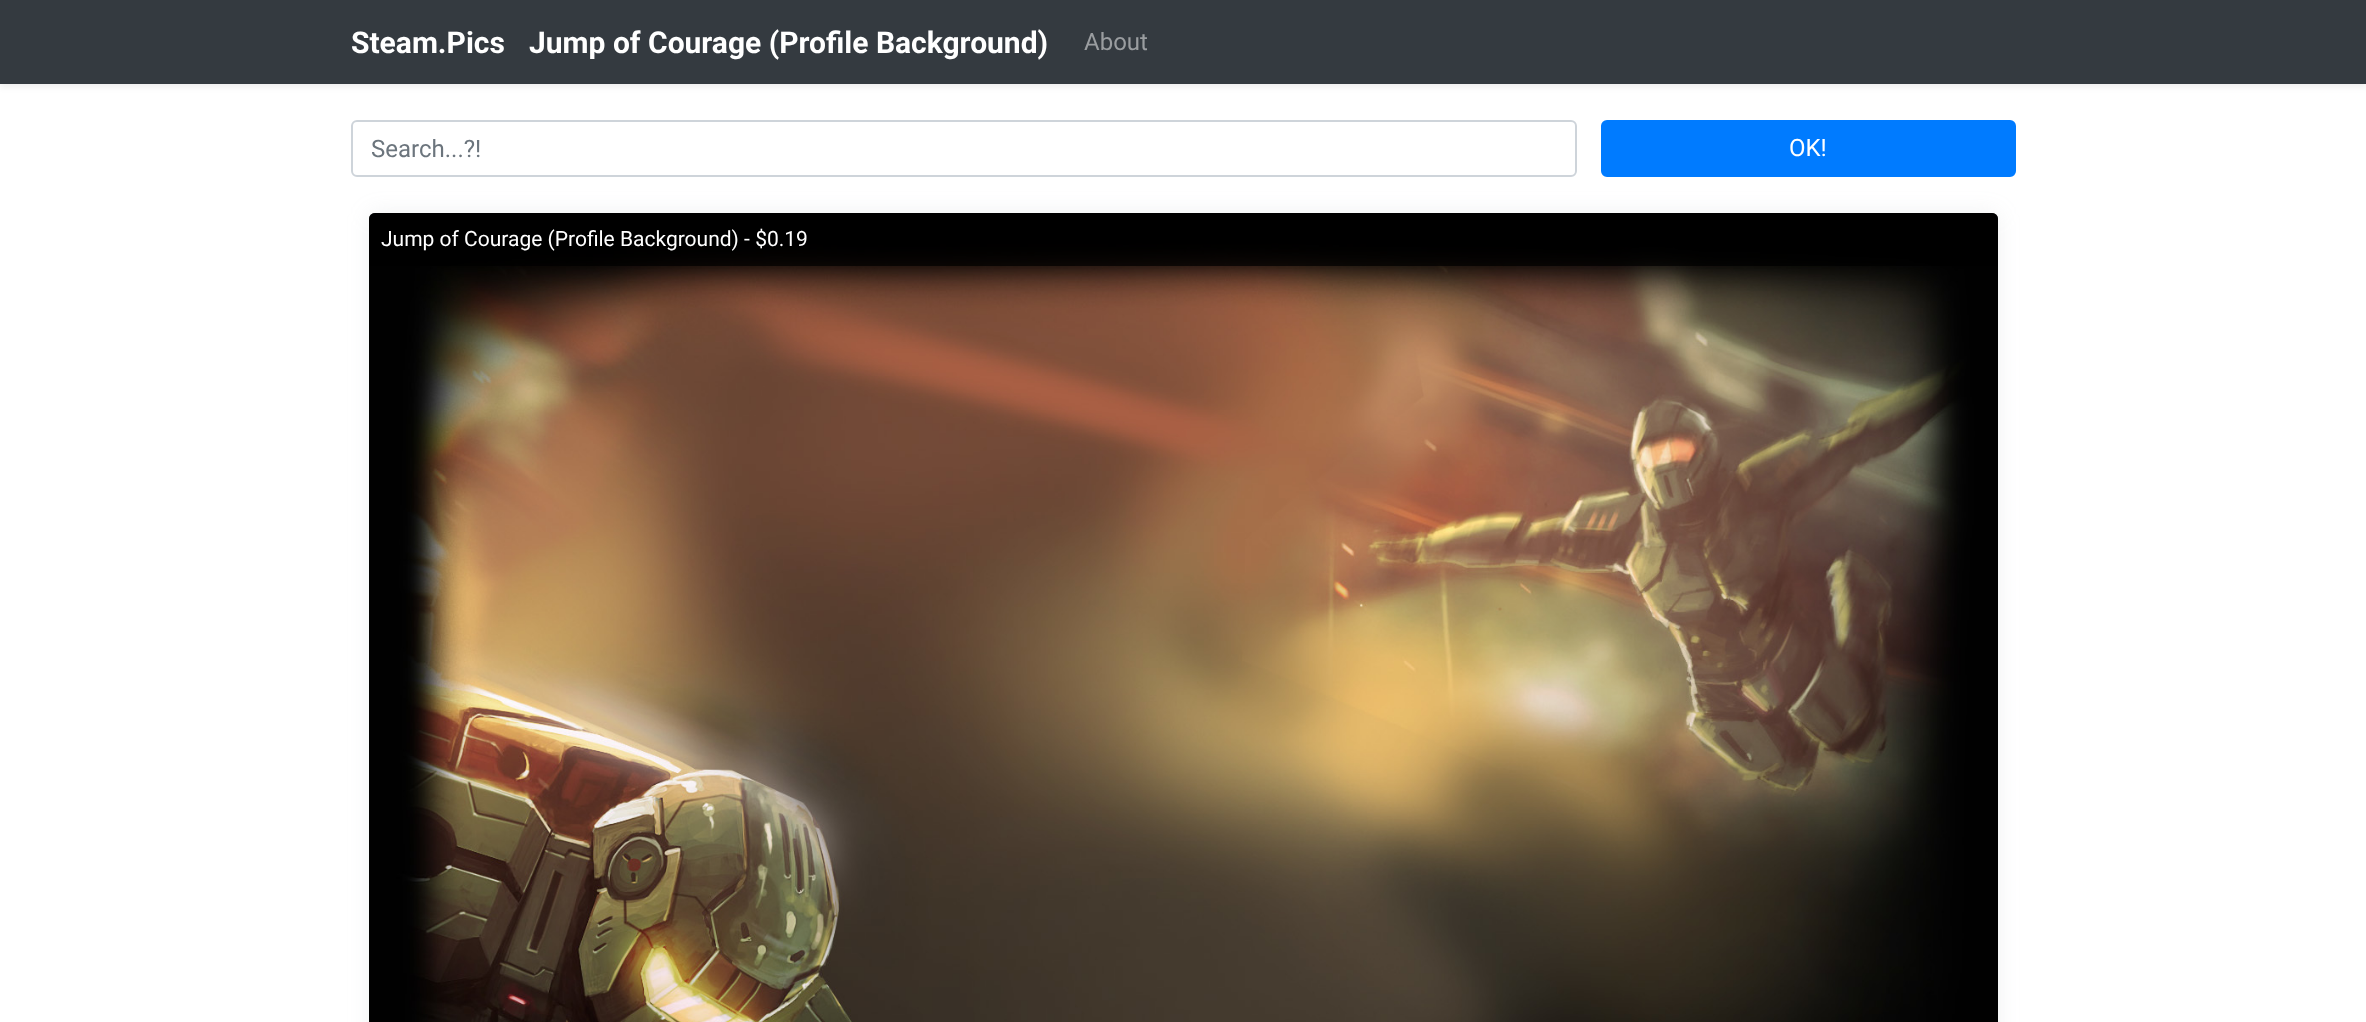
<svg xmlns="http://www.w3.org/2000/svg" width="2366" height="1022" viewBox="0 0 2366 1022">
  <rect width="100%" height="100%" fill="rgb(255,255,255)"/>
  <rect x="0" y="3" width="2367" height="84" fill="rgba(0,0,0,0.07)" filter="blur(3px)"/>
  <rect x="0" y="0" width="2366" height="84" fill="rgb(52,58,64)"/>
  <g font-family="Roboto" font-size="30" font-weight="bold" fill="rgb(255,255,255)">
    <text x="351" y="53">Steam.Pics</text>
    <text x="529" y="53">Jump of Courage (Profile Background)</text>
  </g>
  <text x="1084" y="50" font-family="Roboto" font-size="24" fill="rgb(154,157,160)">About</text>
  <rect x="352" y="121" width="1224" height="55" rx="5" fill="none" stroke="rgb(206,212,218)" stroke-width="2"/>
  <text x="371" y="157" font-family="Roboto" font-size="24" fill="rgb(108,117,125)">Search...?!</text>
  <rect x="1602" y="121" width="413" height="55" rx="5" fill="rgb(0,123,255)" stroke="rgb(0,123,255)" stroke-width="2"/>
  <text x="1789" y="156" font-family="Roboto" font-size="24" fill="rgb(255,255,255)">OK!</text>
  <rect x="369" y="213" width="1629" height="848" rx="6" fill="rgba(154,161,171,0.15)" filter="blur(11px)"/>
  <image x="369" y="213" width="1629" height="809" href="pic1.png"/>
  <path d="M375 213H1992C1995.5 213 1998 215.5 1998 219V266H369V219C369 215.5 371.5 213 375 213Z" fill="rgba(0,0,0,0.7)"/>
  <text x="381" y="246" font-family="Roboto" font-size="21" fill="rgb(255,255,255)">Jump of Courage (Profile Background) - $0.19</text>
</svg>
